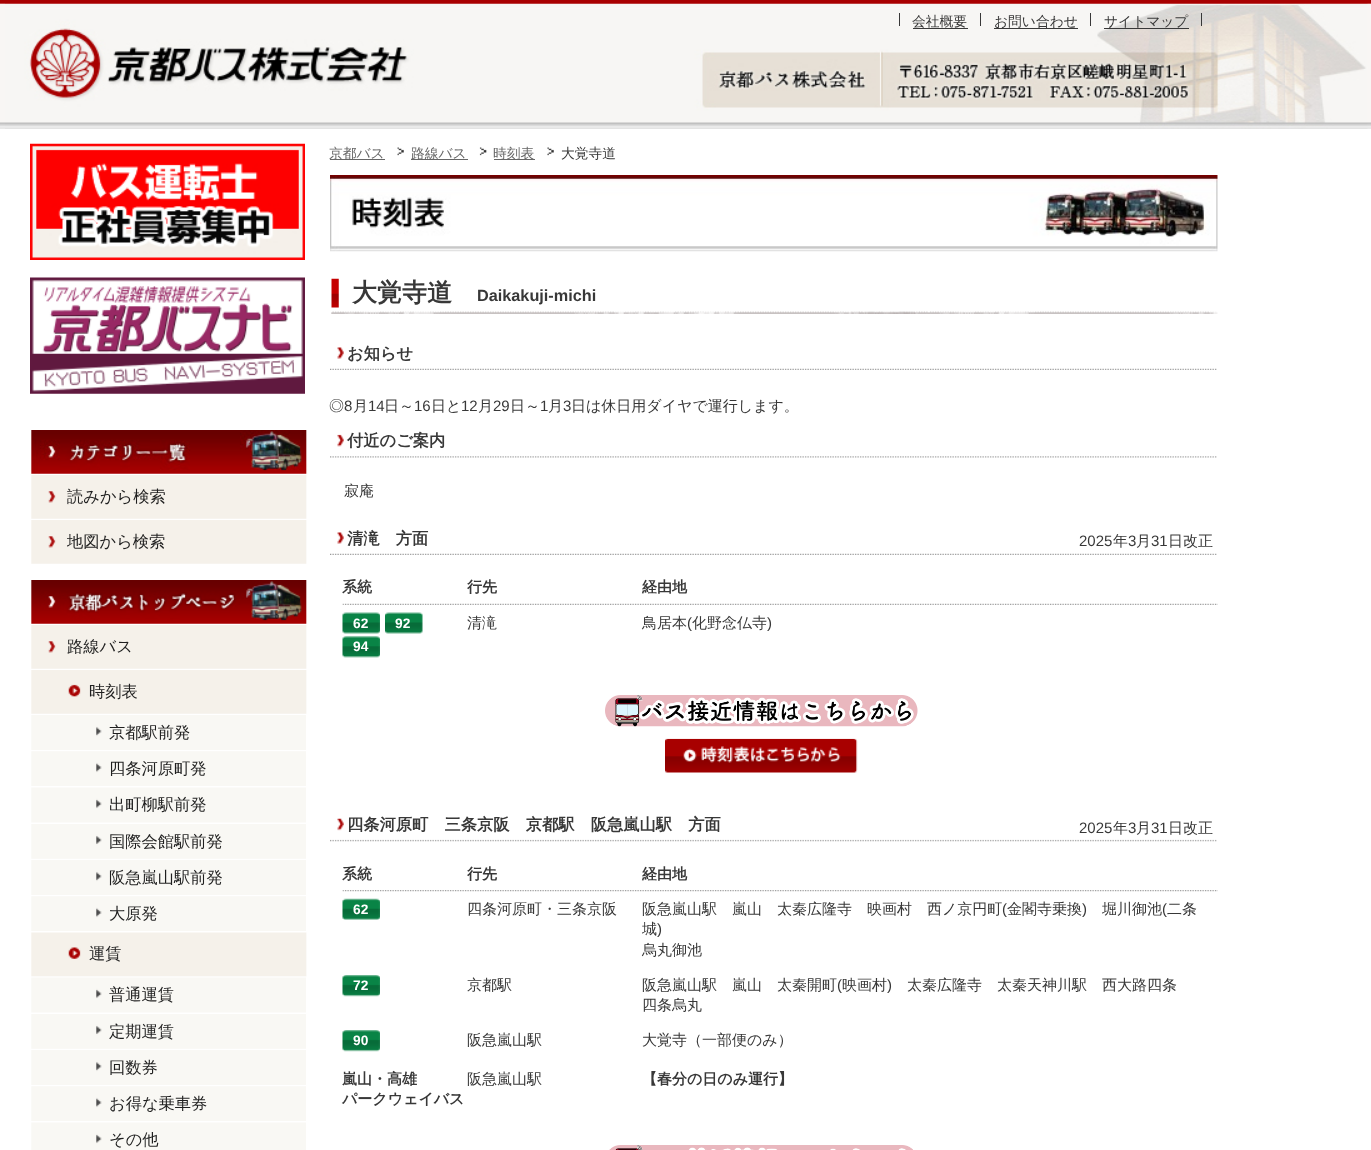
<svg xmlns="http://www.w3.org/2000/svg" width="1371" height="1150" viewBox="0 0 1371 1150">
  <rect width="100%" height="100%" fill="rgb(255,255,255)"/>
  <image x="0" y="0" width="1371" height="129" href="pic1.png"/>
  <image x="5" y="3" width="1363" height="126" href="pic2.png"/>
  <rect x="980" y="13" width="1" height="13" fill="rgb(56,56,56)"/>
  <rect x="899" y="13" width="1" height="13" fill="rgb(56,56,56)"/>
  <text x="912" y="26" font-family="WenQuanYi Zen Hei" font-size="13.75" font-weight="500" fill="rgb(56,56,56)">会社概要</text>
  <rect x="913" y="28" width="55" height="1" fill="rgb(56,56,56)"/>
  <rect x="1090" y="13" width="1" height="13" fill="rgb(56,56,56)"/>
  <rect x="994" y="28" width="84" height="1" fill="rgb(56,56,56)"/>
  <text x="994" y="26" font-family="WenQuanYi Zen Hei" font-size="13.75" font-weight="500" fill="rgb(56,56,56)">お問い合わせ</text>
  <rect x="1201" y="13" width="1" height="13" fill="rgb(56,56,56)"/>
  <text x="1104" y="26" font-family="WenQuanYi Zen Hei" font-size="13.75" font-weight="500" fill="rgb(56,56,56)">サイトマップ</text>
  <rect x="1104" y="28" width="85" height="1" fill="rgb(56,56,56)"/>
  <image x="30" y="143" width="275" height="117" href="pic3.png"/>
  <image x="30" y="277" width="275" height="117" href="pic4.png"/>
  <image x="30" y="430" width="278" height="45" href="pic5.png"/>
  <image x="31" y="475" width="276" height="44" href="pic6.png"/>
  <text x="67" y="502" font-family="WenQuanYi Zen Hei" font-size="16.25" font-weight="500" fill="rgb(31,31,31)">読みから検索</text>
  <image x="31" y="520" width="276" height="44" href="pic6.png"/>
  <text x="67" y="547" font-family="WenQuanYi Zen Hei" font-size="16.25" font-weight="500" fill="rgb(31,31,31)">地図から検索</text>
  <image x="31" y="580" width="276" height="44" href="pic7.png"/>
  <image x="31" y="625" width="276" height="44" href="pic6.png"/>
  <text x="67" y="652" font-family="WenQuanYi Zen Hei" font-size="16.25" font-weight="500" fill="rgb(31,31,31)">路線バス</text>
  <image x="31" y="670" width="276" height="44" href="pic8.png"/>
  <text x="89" y="697" font-family="WenQuanYi Zen Hei" font-size="16.25" font-weight="500" fill="rgb(31,31,31)">時刻表</text>
  <image x="31" y="715" width="275" height="35" href="pic9.png"/>
  <text x="109" y="738" font-family="WenQuanYi Zen Hei" font-size="16.25" font-weight="500" fill="rgb(31,31,31)">京都駅前発</text>
  <image x="31" y="751" width="275" height="35" href="pic10.png"/>
  <text x="109" y="774" font-family="WenQuanYi Zen Hei" font-size="16.25" font-weight="500" fill="rgb(31,31,31)">四条河原町発</text>
  <image x="31" y="787" width="275" height="36" href="pic11.png"/>
  <text x="109" y="810" font-family="WenQuanYi Zen Hei" font-size="16.25" font-weight="500" fill="rgb(31,31,31)">出町柳駅前発</text>
  <image x="31" y="824" width="275" height="35" href="pic12.png"/>
  <text x="109" y="847" font-family="WenQuanYi Zen Hei" font-size="16.25" font-weight="500" fill="rgb(31,31,31)">国際会館駅前発</text>
  <image x="31" y="860" width="275" height="35" href="pic9.png"/>
  <text x="109" y="883" font-family="WenQuanYi Zen Hei" font-size="16.25" font-weight="500" fill="rgb(31,31,31)">阪急嵐山駅前発</text>
  <image x="31" y="896" width="275" height="35" href="pic10.png"/>
  <text x="109" y="919" font-family="WenQuanYi Zen Hei" font-size="16.25" font-weight="500" fill="rgb(31,31,31)">大原発</text>
  <image x="31" y="932" width="276" height="45" href="pic13.png"/>
  <text x="89" y="959" font-family="WenQuanYi Zen Hei" font-size="16.25" font-weight="500" fill="rgb(31,31,31)">運賃</text>
  <image x="31" y="977" width="275" height="36" href="pic11.png"/>
  <text x="109" y="1000" font-family="WenQuanYi Zen Hei" font-size="16.25" font-weight="500" fill="rgb(31,31,31)">普通運賃</text>
  <image x="31" y="1014" width="275" height="35" href="pic12.png"/>
  <text x="109" y="1037" font-family="WenQuanYi Zen Hei" font-size="16.25" font-weight="500" fill="rgb(31,31,31)">定期運賃</text>
  <image x="31" y="1050" width="275" height="35" href="pic9.png"/>
  <text x="109" y="1073" font-family="WenQuanYi Zen Hei" font-size="16.25" font-weight="500" fill="rgb(31,31,31)">回数券</text>
  <image x="31" y="1086" width="275" height="35" href="pic10.png"/>
  <text x="109" y="1109" font-family="WenQuanYi Zen Hei" font-size="16.25" font-weight="500" fill="rgb(31,31,31)">お得な乗車券</text>
  <image x="31" y="1122" width="275" height="28" href="pic14.png"/>
  <text x="109" y="1145" font-family="WenQuanYi Zen Hei" font-size="16.25" font-weight="500" fill="rgb(31,31,31)">その他</text>
  <rect x="330" y="159" width="55" height="1" fill="rgb(102,102,102)"/>
  <text x="329" y="158" font-family="WenQuanYi Zen Hei" font-size="13.75" font-weight="500" fill="rgb(102,102,102)">京都バス</text>
  <image x="397" y="147" width="7" height="9" href="pic15.png"/>
  <rect x="411" y="159" width="57" height="1" fill="rgb(102,102,102)"/>
  <text x="411" y="158" font-family="WenQuanYi Zen Hei" font-size="13.75" font-weight="500" fill="rgb(102,102,102)">路線バス</text>
  <image x="479" y="147" width="8" height="9" href="pic16.png"/>
  <rect x="494" y="159" width="41" height="1" fill="rgb(102,102,102)"/>
  <text x="493" y="158" font-family="WenQuanYi Zen Hei" font-size="13.75" font-weight="500" fill="rgb(102,102,102)">時刻表</text>
  <image x="547" y="147" width="7" height="9" href="pic17.png"/>
  <text x="561" y="158" font-family="WenQuanYi Zen Hei" font-size="13.75" font-weight="500" fill="rgb(56,56,56)">大覚寺道</text>
  <image x="330" y="175" width="888" height="77" href="pic18.png"/>
  <image x="331" y="311" width="887" height="3" href="pic19.png"/>
  <image x="331" y="278" width="8" height="30" href="pic20.png"/>
  <text x="352" y="301" font-family="WenQuanYi Zen Hei" font-size="25" font-weight="bold" fill="rgb(56,56,56)">大覚寺道</text>
  <text x="477" y="301" font-family="Liberation Sans" font-size="16.25" font-weight="bold" fill="rgb(56,56,56)">Daikakuji-michi</text>
  <image x="330" y="347" width="887" height="23" href="pic21.png"/>
  <text x="347" y="359" font-family="WenQuanYi Zen Hei" font-size="16.25" font-weight="bold" fill="rgb(56,56,56)">お知らせ</text>
  <text x="329" y="411" font-family="WenQuanYi Zen Hei" font-size="15" font-weight="500" fill="rgb(56,56,56)">◎</text>
  <text x="344" y="411" font-family="Liberation Sans" font-size="15" fill="rgb(56,56,56)">8</text>
  <text x="353" y="411" font-family="WenQuanYi Zen Hei" font-size="15" font-weight="500" fill="rgb(56,56,56)">月</text>
  <text x="368" y="411" font-family="Liberation Sans" font-size="15" fill="rgb(56,56,56)">14</text>
  <text x="384" y="411" font-family="WenQuanYi Zen Hei" font-size="15" font-weight="500" fill="rgb(56,56,56)">日～</text>
  <text x="414" y="411" font-family="Liberation Sans" font-size="15" fill="rgb(56,56,56)">16</text>
  <text x="431" y="411" font-family="WenQuanYi Zen Hei" font-size="15" font-weight="500" fill="rgb(56,56,56)">日と</text>
  <text x="461" y="411" font-family="Liberation Sans" font-size="15" fill="rgb(56,56,56)">12</text>
  <text x="478" y="411" font-family="WenQuanYi Zen Hei" font-size="15" font-weight="500" fill="rgb(56,56,56)">月</text>
  <text x="493" y="411" font-family="Liberation Sans" font-size="15" fill="rgb(56,56,56)">29</text>
  <text x="510" y="411" font-family="WenQuanYi Zen Hei" font-size="15" font-weight="500" fill="rgb(56,56,56)">日～</text>
  <text x="540" y="411" font-family="Liberation Sans" font-size="15" fill="rgb(56,56,56)">1</text>
  <text x="548" y="411" font-family="WenQuanYi Zen Hei" font-size="15" font-weight="500" fill="rgb(56,56,56)">月</text>
  <text x="563" y="411" font-family="Liberation Sans" font-size="15" fill="rgb(56,56,56)">3</text>
  <text x="571" y="411" font-family="WenQuanYi Zen Hei" font-size="15" font-weight="500" fill="rgb(56,56,56)">日は休日用ダイヤで運行します。</text>
  <image x="330" y="434" width="887" height="24" href="pic22.png"/>
  <text x="347" y="446" font-family="WenQuanYi Zen Hei" font-size="16.25" font-weight="bold" fill="rgb(56,56,56)">付近のご案内</text>
  <text x="344" y="496" font-family="WenQuanYi Zen Hei" font-size="15" font-weight="500" fill="rgb(56,56,56)">寂庵</text>
  <image x="330" y="532" width="887" height="23" href="pic21.png"/>
  <text x="347" y="544" font-family="WenQuanYi Zen Hei" font-size="16.25" font-weight="bold" fill="rgb(56,56,56)">清滝　方面</text>
  <text x="1079" y="546" font-family="Liberation Sans" font-size="15" fill="rgb(56,56,56)">2025</text>
  <text x="1113" y="546" font-family="WenQuanYi Zen Hei" font-size="15" font-weight="500" fill="rgb(56,56,56)">年</text>
  <text x="1128" y="546" font-family="Liberation Sans" font-size="15" fill="rgb(56,56,56)">3</text>
  <text x="1136" y="546" font-family="WenQuanYi Zen Hei" font-size="15" font-weight="500" fill="rgb(56,56,56)">月</text>
  <text x="1151" y="546" font-family="Liberation Sans" font-size="15" fill="rgb(56,56,56)">31</text>
  <text x="1168" y="546" font-family="WenQuanYi Zen Hei" font-size="15" font-weight="500" fill="rgb(56,56,56)">日改正</text>
  <image x="342" y="603" width="876" height="2" href="pic23.png"/>
  <g font-family="WenQuanYi Zen Hei" font-size="15" font-weight="bold" fill="rgb(56,56,56)">
    <text x="342" y="592">系統</text>
    <text x="467" y="592">行先</text>
    <text x="642" y="592">経由地</text>
  </g>
  <image x="342" y="612" width="38" height="22" href="pic24.png"/>
  <text x="353" y="628" font-family="Liberation Sans" font-size="13.75" font-weight="bold" fill="rgb(255,255,255)">62</text>
  <image x="385" y="612" width="38" height="22" href="pic25.png"/>
  <text x="395" y="628" font-family="Liberation Sans" font-size="13.75" font-weight="bold" fill="rgb(255,255,255)">92</text>
  <image x="342" y="636" width="38" height="22" href="pic26.png"/>
  <text x="353" y="651" font-family="Liberation Sans" font-size="13.75" font-weight="bold" fill="rgb(255,255,255)">94</text>
  <g font-family="WenQuanYi Zen Hei" font-size="15" font-weight="500" fill="rgb(56,56,56)">
    <text x="467" y="628">清滝</text>
    <text x="642" y="628">鳥居本</text>
  </g>
  <text x="687" y="628" font-family="Liberation Sans" font-size="15" fill="rgb(56,56,56)">(</text>
  <text x="692" y="628" font-family="WenQuanYi Zen Hei" font-size="15" font-weight="500" fill="rgb(56,56,56)">化野念仏寺</text>
  <text x="767" y="628" font-family="Liberation Sans" font-size="15" fill="rgb(56,56,56)">)</text>
  <image x="605" y="695" width="313" height="32" href="pic27.png"/>
  <image x="665" y="738" width="193" height="35" href="pic28.png"/>
  <image x="330" y="818" width="887" height="24" href="pic29.png"/>
  <text x="347" y="830" font-family="WenQuanYi Zen Hei" font-size="16.25" font-weight="bold" fill="rgb(56,56,56)">四条河原町　三条京阪　京都駅　阪急嵐山駅　方面</text>
  <text x="1079" y="833" font-family="Liberation Sans" font-size="15" fill="rgb(56,56,56)">2025</text>
  <text x="1113" y="833" font-family="WenQuanYi Zen Hei" font-size="15" font-weight="500" fill="rgb(56,56,56)">年</text>
  <text x="1128" y="833" font-family="Liberation Sans" font-size="15" fill="rgb(56,56,56)">3</text>
  <text x="1136" y="833" font-family="WenQuanYi Zen Hei" font-size="15" font-weight="500" fill="rgb(56,56,56)">月</text>
  <text x="1151" y="833" font-family="Liberation Sans" font-size="15" fill="rgb(56,56,56)">31</text>
  <text x="1168" y="833" font-family="WenQuanYi Zen Hei" font-size="15" font-weight="500" fill="rgb(56,56,56)">日改正</text>
  <image x="342" y="890" width="876" height="2" href="pic30.png"/>
  <g font-family="WenQuanYi Zen Hei" font-size="15" font-weight="bold" fill="rgb(56,56,56)">
    <text x="342" y="879">系統</text>
    <text x="467" y="879">行先</text>
    <text x="642" y="879">経由地</text>
  </g>
  <image x="342" y="898" width="38" height="22" href="pic31.png"/>
  <text x="353" y="914" font-family="Liberation Sans" font-size="13.75" font-weight="bold" fill="rgb(255,255,255)">62</text>
  <g font-family="WenQuanYi Zen Hei" font-size="15" font-weight="500" fill="rgb(56,56,56)">
    <text x="467" y="914">四条河原町・三条京阪</text>
    <text x="642" y="914">阪急嵐山駅　嵐山　太秦広隆寺　映画村　西ノ京円町</text>
  </g>
  <text x="1002" y="914" font-family="Liberation Sans" font-size="15" fill="rgb(56,56,56)">(</text>
  <text x="1007" y="914" font-family="WenQuanYi Zen Hei" font-size="15" font-weight="500" fill="rgb(56,56,56)">金閣寺乗換</text>
  <text x="1082" y="914" font-family="Liberation Sans" font-size="15" fill="rgb(56,56,56)">)</text>
  <text x="1102" y="914" font-family="WenQuanYi Zen Hei" font-size="15" font-weight="500" fill="rgb(56,56,56)">堀川御池</text>
  <text x="1162" y="914" font-family="Liberation Sans" font-size="15" fill="rgb(56,56,56)">(</text>
  <g font-family="WenQuanYi Zen Hei" font-size="15" font-weight="500" fill="rgb(56,56,56)">
    <text x="1167" y="914">二条</text>
    <text x="642" y="934">城</text>
  </g>
  <text x="657" y="934" font-family="Liberation Sans" font-size="15" fill="rgb(56,56,56)">)</text>
  <text x="642" y="955" font-family="WenQuanYi Zen Hei" font-size="15" font-weight="500" fill="rgb(56,56,56)">烏丸御池</text>
  <image x="342" y="975" width="38" height="22" href="pic32.png"/>
  <text x="353" y="990" font-family="Liberation Sans" font-size="13.75" font-weight="bold" fill="rgb(255,255,255)">72</text>
  <g font-family="WenQuanYi Zen Hei" font-size="15" font-weight="500" fill="rgb(56,56,56)">
    <text x="467" y="990">京都駅</text>
    <text x="642" y="990">阪急嵐山駅　嵐山　太秦開町</text>
  </g>
  <text x="837" y="990" font-family="Liberation Sans" font-size="15" fill="rgb(56,56,56)">(</text>
  <text x="842" y="990" font-family="WenQuanYi Zen Hei" font-size="15" font-weight="500" fill="rgb(56,56,56)">映画村</text>
  <text x="887" y="990" font-family="Liberation Sans" font-size="15" fill="rgb(56,56,56)">)</text>
  <g font-family="WenQuanYi Zen Hei" font-size="15" font-weight="500" fill="rgb(56,56,56)">
    <text x="907" y="990">太秦広隆寺　太秦天神川駅　西大路四条</text>
    <text x="642" y="1010">四条烏丸</text>
  </g>
  <image x="342" y="1030" width="38" height="22" href="pic32.png"/>
  <text x="353" y="1045" font-family="Liberation Sans" font-size="13.75" font-weight="bold" fill="rgb(255,255,255)">90</text>
  <g font-family="WenQuanYi Zen Hei" font-size="15" font-weight="500" fill="rgb(56,56,56)">
    <text x="467" y="1045">阪急嵐山駅</text>
    <text x="642" y="1045">大覚寺（一部便のみ）</text>
  </g>
  <g font-family="WenQuanYi Zen Hei" font-size="15" font-weight="bold" fill="rgb(56,56,56)">
    <text>
      <tspan x="342" y="1084">嵐山・高雄</tspan>
      <tspan x="342" y="1104">パークウェイバス</tspan>
    </text>
  </g>
  <text x="467" y="1084" font-family="WenQuanYi Zen Hei" font-size="15" font-weight="500" fill="rgb(56,56,56)">阪急嵐山駅</text>
  <text x="642" y="1084" font-family="WenQuanYi Zen Hei" font-size="15" font-weight="bold" fill="rgb(56,56,56)">【春分の日のみ運行】</text>
  <image x="609" y="1145" width="304" height="5" href="pic33.png"/>
</svg>
